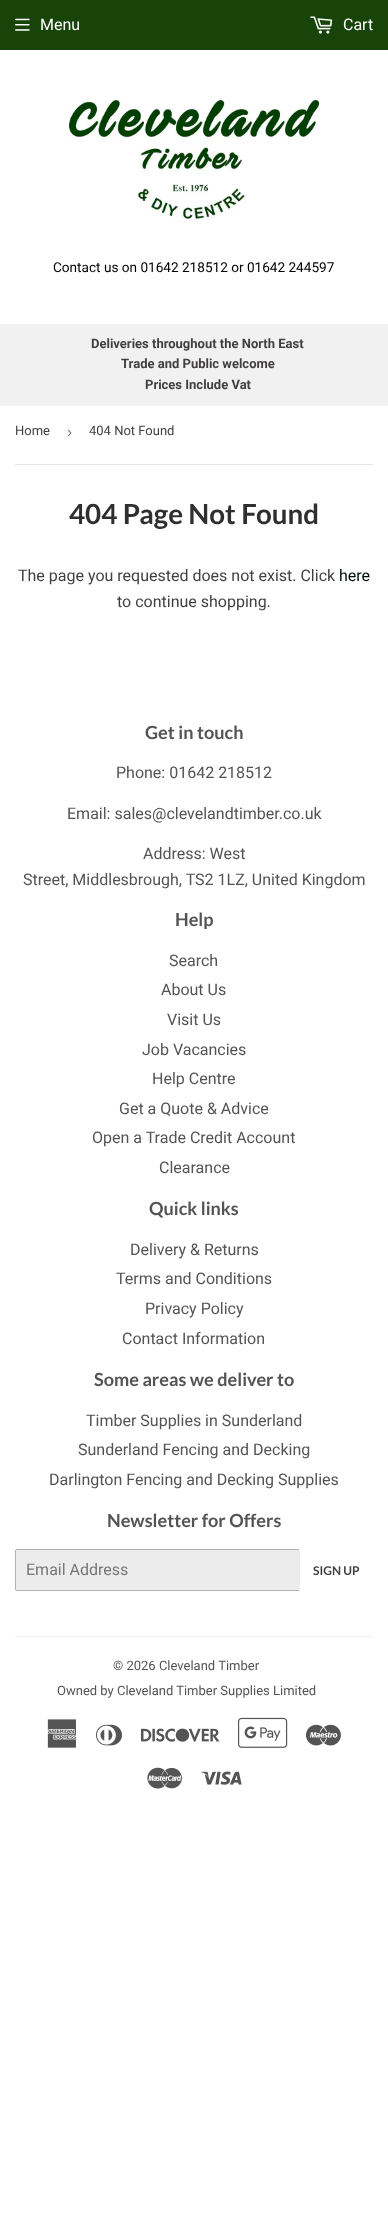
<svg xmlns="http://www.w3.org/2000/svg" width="388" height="2235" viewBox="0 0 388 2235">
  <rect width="100%" height="100%" fill="rgb(255,255,255)"/>
  <rect x="0" y="0" width="388" height="50" fill="rgb(24,68,9)"/>
  <image x="15" y="18" width="15" height="13" href="pic1.png"/>
  <text x="40" y="30" font-family="Roboto" font-size="16" fill="rgb(255,255,255)">Menu</text>
  <image x="310" y="16" width="23" height="18" href="pic2.png"/>
  <text x="343" y="30" font-family="Roboto" font-size="16" fill="rgb(255,255,255)">Cart</text>
  <image x="69" y="98" width="250" height="125" href="pic3.png"/>
  <text x="53" y="272" font-family="Roboto" font-size="13.6" fill="rgb(0,0,0)">Contact us on 01642 218512 or 01642 244597</text>
  <rect x="0" y="324" width="388" height="82" fill="rgb(241,241,241)"/>
  <g font-family="Roboto" font-size="13" font-weight="bold" fill="rgb(65,63,63)">
    <text x="91" y="348">Deliveries throughout the North East</text>
    <text x="121" y="368">Trade and Public welcome</text>
    <text x="145" y="389">Prices Include Vat</text>
  </g>
  <rect x="15" y="464" width="358" height="1" fill="rgb(231,228,228)"/>
  <text x="15" y="435" font-family="Roboto" font-size="13" fill="rgb(65,63,63)">Home</text>
  <text x="67" y="437" font-family="Liberation Sans" font-size="15" fill="rgb(118,118,118)">›</text>
  <text x="89" y="435" font-family="Roboto" font-size="13" fill="rgb(65,63,63)">404 Not Found</text>
  <text x="69" y="524" font-family="Lato" font-size="27.75" font-weight="bold" fill="rgb(47,47,47)">404 Page Not Found</text>
  <text x="18" y="581" font-family="Roboto" font-size="16" fill="rgb(65,63,63)">The page you requested does not exist. Click</text>
  <text x="339" y="581" font-family="Roboto" font-size="16" fill="rgb(1,11,4)">here</text>
  <text x="117" y="607" font-family="Roboto" font-size="16" fill="rgb(65,63,63)">to continue shopping.</text>
  <text x="145" y="739" font-family="Lato" font-size="18.1" font-weight="bold" fill="rgb(84,84,84)">Get in touch</text>
  <g font-family="Roboto" font-size="16" fill="rgb(84,84,84)">
    <text x="116" y="778">Phone: 01642 218512</text>
    <text x="67" y="819">Email: sales@clevelandtimber.co.uk</text>
    <text x="143" y="859">Address: West</text>
    <text x="23" y="885">Street, Middlesbrough, TS2 1LZ, United Kingdom</text>
  </g>
  <text x="175" y="926" font-family="Lato" font-size="18.1" font-weight="bold" fill="rgb(84,84,84)">Help</text>
  <g font-family="Roboto" font-size="16" fill="rgb(84,84,84)">
    <text x="169" y="966">Search</text>
    <text x="161" y="995">About Us</text>
    <text x="167" y="1025">Visit Us</text>
    <text x="142" y="1055">Job Vacancies</text>
    <text x="152" y="1084">Help Centre</text>
    <text x="119" y="1114">Get a Quote &amp; Advice</text>
    <text x="92" y="1143">Open a Trade Credit Account</text>
    <text x="159" y="1173">Clearance</text>
  </g>
  <text x="149" y="1215" font-family="Lato" font-size="18.1" font-weight="bold" fill="rgb(84,84,84)">Quick links</text>
  <g font-family="Roboto" font-size="16" fill="rgb(84,84,84)">
    <text x="130" y="1255">Delivery &amp; Returns</text>
    <text x="116" y="1284">Terms and Conditions</text>
    <text x="145" y="1314">Privacy Policy</text>
    <text x="122" y="1344">Contact Information</text>
  </g>
  <text x="94" y="1386" font-family="Lato" font-size="18.1" font-weight="bold" fill="rgb(84,84,84)">Some areas we deliver to</text>
  <g font-family="Roboto" font-size="16" fill="rgb(84,84,84)">
    <text x="86" y="1426">Timber Supplies in Sunderland</text>
    <text x="78" y="1455">Sunderland Fencing and Decking</text>
    <text x="49" y="1485">Darlington Fencing and Decking Supplies</text>
  </g>
  <text x="107" y="1527" font-family="Lato" font-size="18.1" font-weight="bold" fill="rgb(84,84,84)">Newsletter for Offers</text>
  <rect x="15" y="1549" width="285" height="42" rx="2" fill="rgb(236,236,236)"/>
  <rect x="16" y="1549" width="283" height="1" fill="rgb(183,174,174)"/>
  <rect x="16" y="1590" width="283" height="1" fill="rgb(183,174,174)"/>
  <rect x="15" y="1550" width="1" height="40" fill="rgb(183,174,174)"/>
  <text x="26" y="1575" font-family="Roboto" font-size="16" fill="rgb(118,118,118)">Email Address</text>
  <text x="313" y="1575" font-family="Lato" font-size="12" font-weight="bold" fill="rgb(65,63,63)">SIGN UP</text>
  <rect x="15" y="1636" width="358" height="1" fill="rgb(242,242,242)"/>
  <g font-family="Roboto" font-size="13" fill="rgb(84,84,84)">
    <text x="113" y="1670">© 2026 Cleveland Timber</text>
    <text x="57" y="1695">Owned by Cleveland Timber Supplies Limited</text>
  </g>
  <image x="47" y="1719" width="30" height="29" href="pic4.png"/>
  <image x="96" y="1724" width="26" height="22" href="pic5.png"/>
  <image x="141" y="1728" width="79" height="14" href="pic6.png"/>
  <image x="238" y="1717" width="50" height="31" href="pic7.png"/>
  <image x="306" y="1724" width="35" height="22" href="pic8.png"/>
  <image x="147" y="1767" width="35" height="22" href="pic9.png"/>
  <image x="201" y="1771" width="41" height="14" href="pic10.png"/>
</svg>
